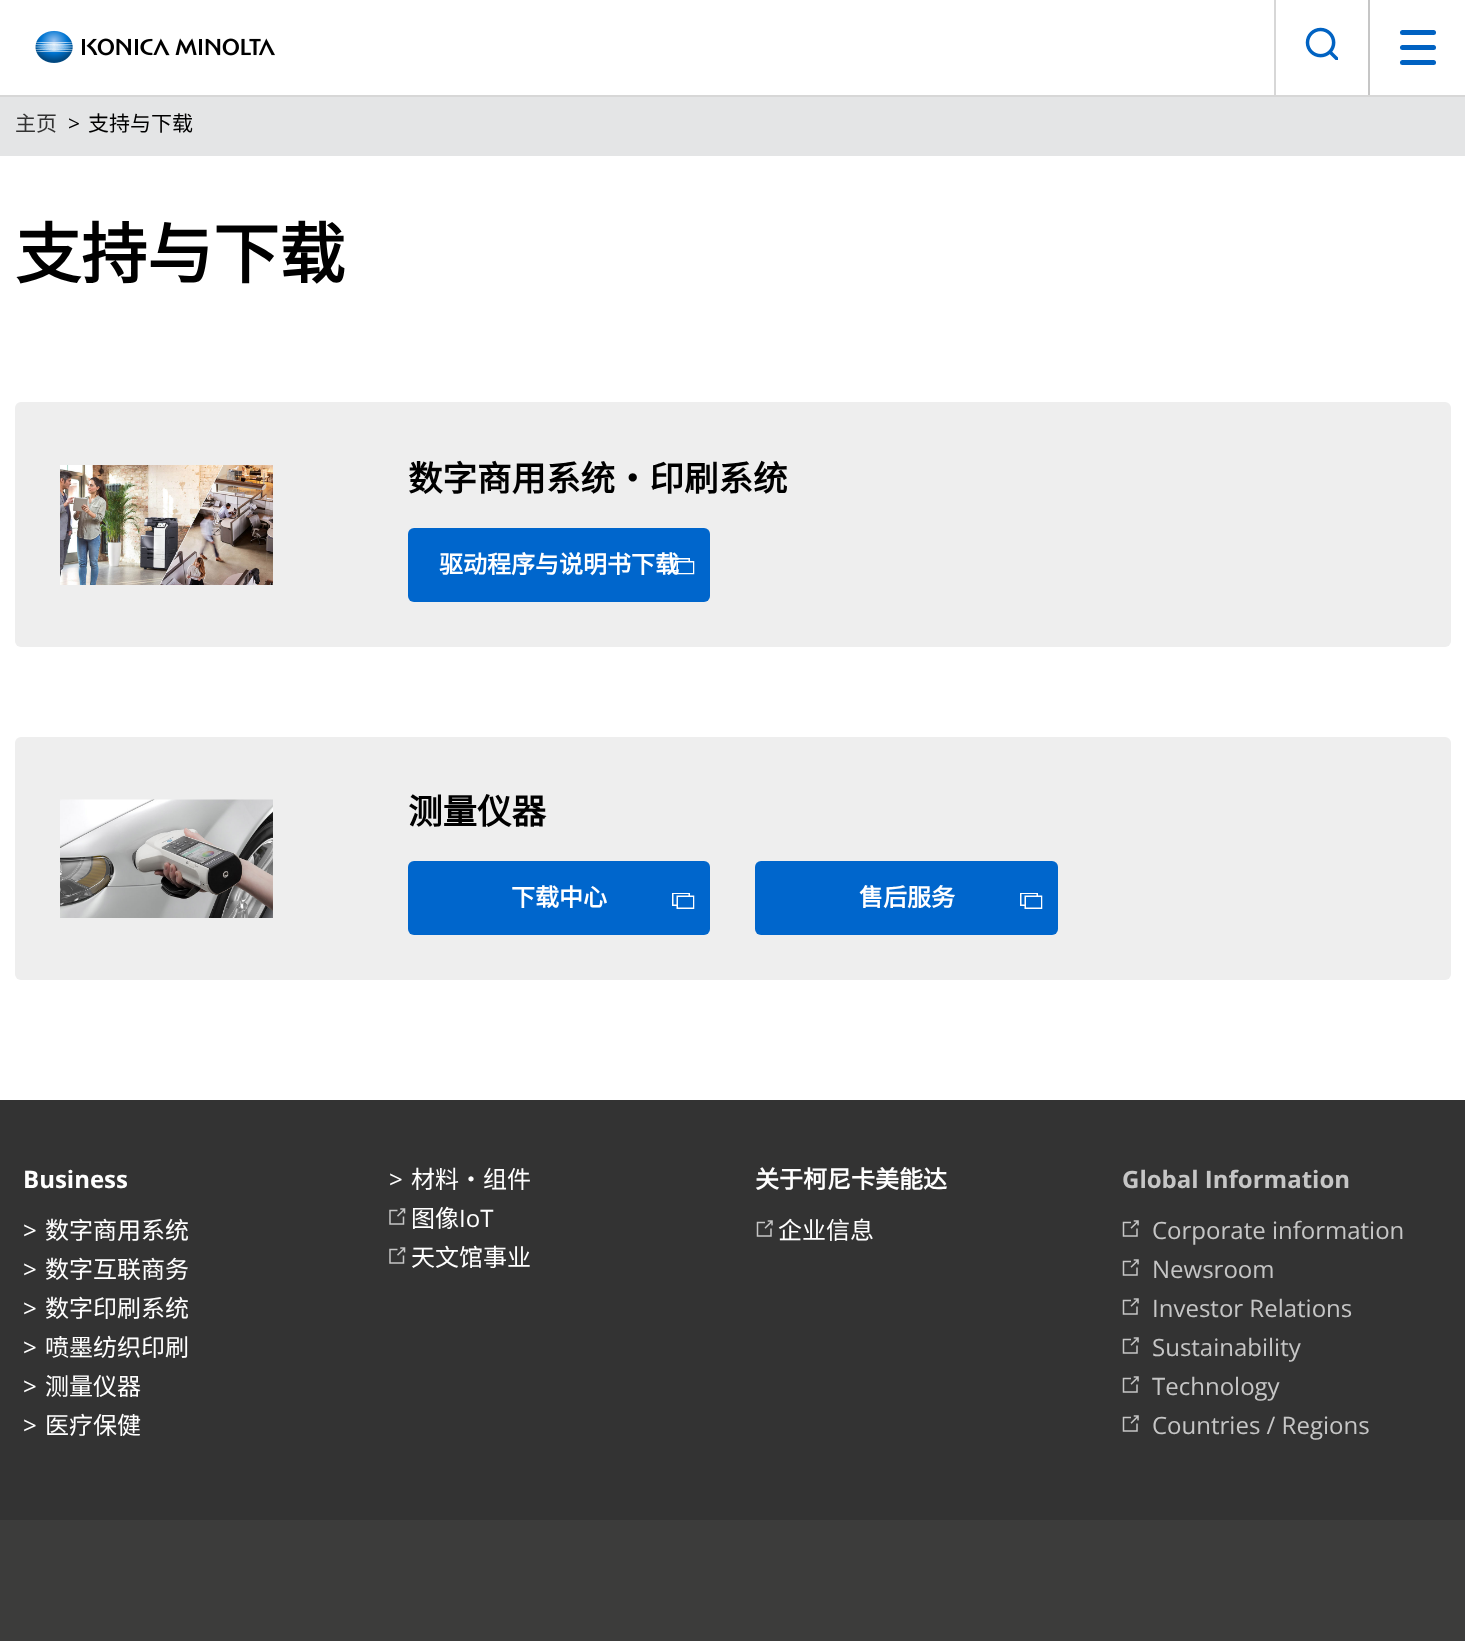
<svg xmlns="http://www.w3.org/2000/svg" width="1465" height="1641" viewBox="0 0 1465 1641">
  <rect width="100%" height="100%" fill="rgb(255,255,255)"/>
  <rect x="0" y="95" width="1465" height="2" fill="rgb(215,215,215)"/>
  <image x="35" y="30" width="240" height="33" href="pic1.png"/>
  <rect x="1368" y="0" width="2" height="95" fill="rgb(198,198,198)"/>
  <rect x="1274" y="0" width="2" height="95" fill="rgb(215,215,215)"/>
  <image x="1305" y="27" width="33" height="33" href="pic2.png"/>
  <rect x="1400" y="30" width="36" height="5" rx="2.5" fill="rgb(0,98,194)"/>
  <rect x="1400" y="45" width="36" height="5" rx="2.5" fill="rgb(0,98,194)"/>
  <rect x="1400" y="60" width="36" height="5" rx="2.5" fill="rgb(0,98,194)"/>
  <rect x="0" y="97" width="1465" height="59" fill="rgb(228,229,230)"/>
  <text x="15" y="131" font-family="Noto Sans CJK SC" font-size="21" fill="rgb(51,51,51)">主页</text>
  <text x="68" y="131" font-family="Open Sans" font-size="21" fill="rgb(0,0,0)">&gt;</text>
  <text x="88" y="131" font-family="Noto Sans CJK SC" font-size="21" fill="rgb(0,0,0)">支持与下载</text>
  <text x="15" y="278" font-family="Noto Sans CJK SC" font-size="66" font-weight="bold" fill="rgb(0,0,0)">支持与下载</text>
  <rect x="15" y="402" width="1436" height="245" rx="6" fill="rgb(238,238,238)"/>
  <image x="60" y="465" width="213" height="120" href="pic3.png"/>
  <text x="408" y="491" font-family="Noto Sans CJK SC" font-size="34.5" font-weight="bold" fill="rgb(0,0,0)">数字商用系统・印刷系统</text>
  <rect x="408" y="528" width="302" height="74" rx="6" fill="rgb(0,102,204)"/>
  <text x="439" y="573" font-family="Noto Sans CJK SC" font-size="24" font-weight="bold" fill="rgb(255,255,255)">驱动程序与说明书下载</text>
  <image x="672" y="558" width="23" height="17" href="pic4.png"/>
  <rect x="15" y="737" width="1436" height="243" rx="6" fill="rgb(238,238,238)"/>
  <image x="60" y="799" width="213" height="119" href="pic5.png"/>
  <text x="408" y="824" font-family="Noto Sans CJK SC" font-size="34.5" font-weight="bold" fill="rgb(0,0,0)">测量仪器</text>
  <rect x="408" y="861" width="302" height="74" rx="6" fill="rgb(0,102,204)"/>
  <text x="511" y="906" font-family="Noto Sans CJK SC" font-size="24" font-weight="bold" fill="rgb(255,255,255)">下载中心</text>
  <image x="672" y="893" width="23" height="16" href="pic6.png"/>
  <rect x="755" y="861" width="303" height="74" rx="6" fill="rgb(0,102,204)"/>
  <text x="859" y="906" font-family="Noto Sans CJK SC" font-size="24" font-weight="bold" fill="rgb(255,255,255)">售后服务</text>
  <image x="1020" y="893" width="23" height="16" href="pic6.png"/>
  <rect x="0" y="1100" width="1465" height="420" fill="rgb(51,51,51)"/>
  <text x="23" y="1188" font-family="Open Sans" font-size="24" font-weight="bold" fill="rgb(255,255,255)">Business</text>
  <text x="23" y="1239" font-family="Open Sans" font-size="24" fill="rgb(255,255,255)">&gt;</text>
  <text x="45" y="1239" font-family="Noto Sans CJK SC" font-size="24" fill="rgb(255,255,255)">数字商用系统</text>
  <text x="23" y="1278" font-family="Open Sans" font-size="24" fill="rgb(255,255,255)">&gt;</text>
  <text x="45" y="1278" font-family="Noto Sans CJK SC" font-size="24" fill="rgb(255,255,255)">数字互联商务</text>
  <text x="23" y="1317" font-family="Open Sans" font-size="24" fill="rgb(255,255,255)">&gt;</text>
  <text x="45" y="1317" font-family="Noto Sans CJK SC" font-size="24" fill="rgb(255,255,255)">数字印刷系统</text>
  <text x="23" y="1356" font-family="Open Sans" font-size="24" fill="rgb(255,255,255)">&gt;</text>
  <text x="45" y="1356" font-family="Noto Sans CJK SC" font-size="24" fill="rgb(255,255,255)">喷墨纺织印刷</text>
  <text x="23" y="1395" font-family="Open Sans" font-size="24" fill="rgb(255,255,255)">&gt;</text>
  <text x="45" y="1395" font-family="Noto Sans CJK SC" font-size="24" fill="rgb(255,255,255)">测量仪器</text>
  <text x="23" y="1434" font-family="Open Sans" font-size="24" fill="rgb(255,255,255)">&gt;</text>
  <text x="45" y="1434" font-family="Noto Sans CJK SC" font-size="24" fill="rgb(255,255,255)">医疗保健</text>
  <text x="389" y="1188" font-family="Open Sans" font-size="24" fill="rgb(255,255,255)">&gt;</text>
  <text x="411" y="1188" font-family="Noto Sans CJK SC" font-size="24" fill="rgb(255,255,255)">材料・组件</text>
  <image x="389" y="1208" width="17" height="17" href="pic7.png"/>
  <text x="411" y="1227" font-family="Noto Sans CJK SC" font-size="24" fill="rgb(255,255,255)">图像</text>
  <text x="459" y="1227" font-family="Open Sans" font-size="24" fill="rgb(255,255,255)">IoT</text>
  <image x="389" y="1247" width="17" height="17" href="pic7.png"/>
  <text x="411" y="1266" font-family="Noto Sans CJK SC" font-size="24" fill="rgb(255,255,255)">天文馆事业</text>
  <text x="755" y="1188" font-family="Noto Sans CJK SC" font-size="24" font-weight="bold" fill="rgb(255,255,255)">关于柯尼卡美能达</text>
  <image x="756" y="1220" width="17" height="17" href="pic8.png"/>
  <text x="778" y="1239" font-family="Noto Sans CJK SC" font-size="24" fill="rgb(255,255,255)">企业信息</text>
  <text x="1122" y="1188" font-family="Open Sans" font-size="24" font-weight="bold" fill="rgb(198,198,198)">Global Information</text>
  <image x="1122" y="1220" width="17" height="17" href="pic8.png"/>
  <text x="1152" y="1239" font-family="Open Sans" font-size="24" fill="rgb(198,198,198)">Corporate information</text>
  <image x="1122" y="1259" width="17" height="17" href="pic8.png"/>
  <text x="1152" y="1278" font-family="Open Sans" font-size="24" fill="rgb(198,198,198)">Newsroom</text>
  <image x="1122" y="1298" width="17" height="17" href="pic8.png"/>
  <text x="1152" y="1317" font-family="Open Sans" font-size="24" fill="rgb(198,198,198)">Investor Relations</text>
  <image x="1122" y="1337" width="17" height="17" href="pic8.png"/>
  <text x="1152" y="1356" font-family="Open Sans" font-size="24" fill="rgb(198,198,198)">Sustainability</text>
  <image x="1122" y="1376" width="17" height="17" href="pic8.png"/>
  <text x="1152" y="1395" font-family="Open Sans" font-size="24" fill="rgb(198,198,198)">Technology</text>
  <image x="1122" y="1415" width="17" height="17" href="pic8.png"/>
  <text x="1152" y="1434" font-family="Open Sans" font-size="24" fill="rgb(198,198,198)">Countries / Regions</text>
  <rect x="0" y="1520" width="1465" height="121" fill="rgb(60,60,59)"/>
</svg>
